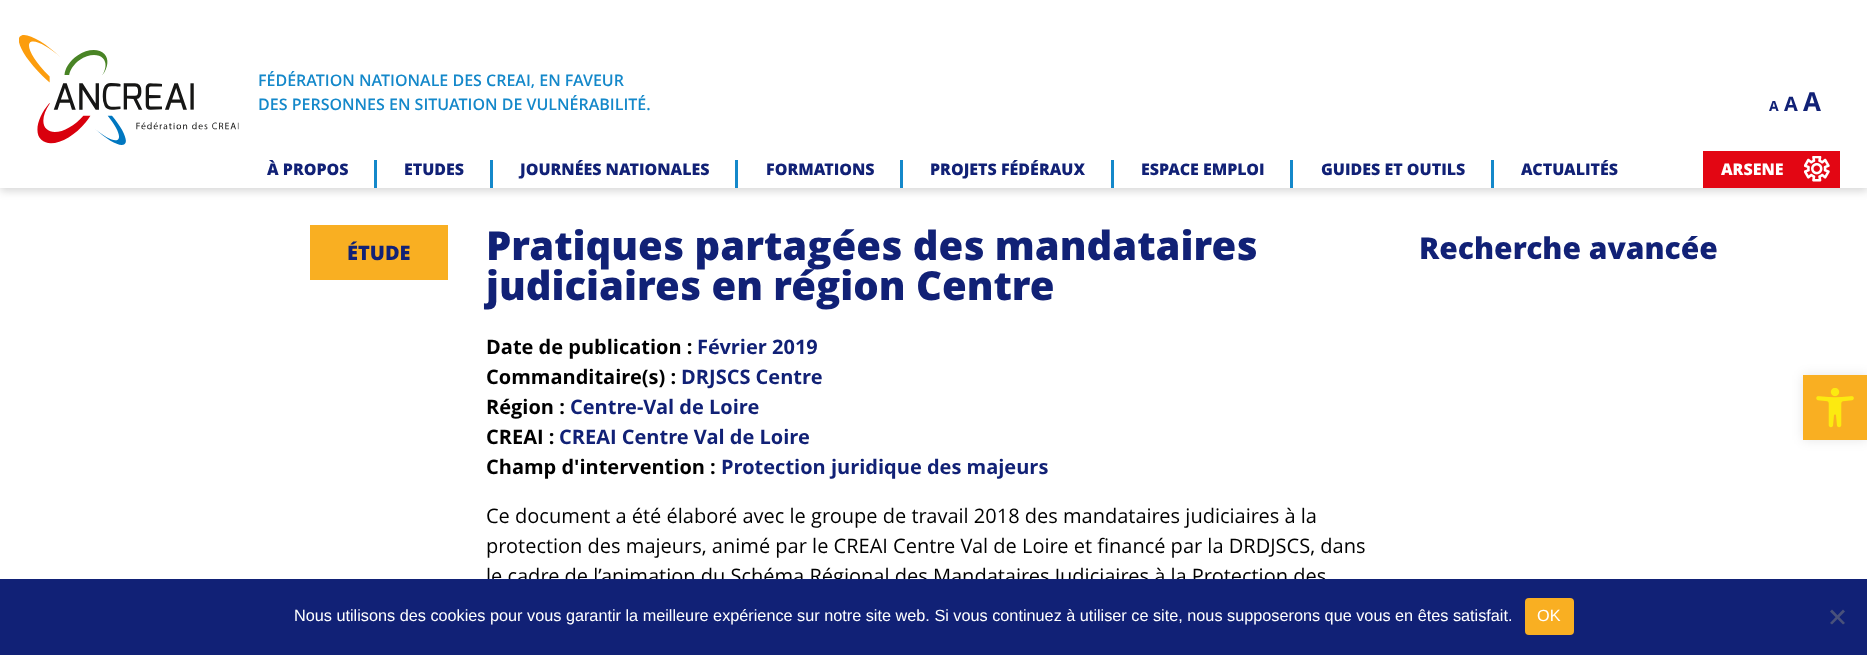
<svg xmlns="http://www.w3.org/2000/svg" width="1867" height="655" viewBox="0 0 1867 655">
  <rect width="100%" height="100%" fill="rgb(255,255,255)"/>
  <rect x="0" y="4" width="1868" height="187" fill="rgba(0,0,0,0.16)" filter="blur(4px)"/>
  <rect x="0" y="0" width="1867" height="188" fill="rgb(255,255,255)"/>
  <image x="19" y="35" width="220" height="110" href="pic1.png"/>
  <g font-family="Open Sans" font-size="16" font-weight="600" fill="rgb(20,136,202)">
    <text>
      <tspan x="258" y="86">FÉDÉRATION NATIONALE DES CREAI, EN FAVEUR</tspan>
      <tspan x="258" y="110">DES PERSONNES EN SITUATION DE VULNÉRABILITÉ.</tspan>
    </text>
  </g>
  <text x="1769" y="111" font-family="Open Sans" font-size="14" font-weight="bold" fill="rgb(17,33,118)">A</text>
  <text x="1784" y="111" font-family="Open Sans" font-size="20" font-weight="bold" fill="rgb(17,33,118)">A</text>
  <text x="1803" y="111" font-family="Open Sans" font-size="26" font-weight="bold" fill="rgb(17,33,118)">A</text>
  <text x="267" y="175" font-family="Open Sans" font-size="16" font-weight="800" fill="rgb(17,33,118)">À PROPOS</text>
  <rect x="374" y="160" width="3" height="28" fill="rgb(20,136,202)"/>
  <text x="404" y="175" font-family="Open Sans" font-size="16" font-weight="800" fill="rgb(17,33,118)">ETUDES</text>
  <rect x="490" y="160" width="3" height="28" fill="rgb(20,136,202)"/>
  <text x="520" y="175" font-family="Open Sans" font-size="16" font-weight="800" fill="rgb(17,33,118)">JOURNÉES NATIONALES</text>
  <rect x="735" y="160" width="3" height="28" fill="rgb(20,136,202)"/>
  <text x="766" y="175" font-family="Open Sans" font-size="16" font-weight="800" fill="rgb(17,33,118)">FORMATIONS</text>
  <rect x="900" y="160" width="3" height="28" fill="rgb(20,136,202)"/>
  <text x="930" y="175" font-family="Open Sans" font-size="16" font-weight="800" fill="rgb(17,33,118)">PROJETS FÉDÉRAUX</text>
  <rect x="1111" y="160" width="3" height="28" fill="rgb(20,136,202)"/>
  <text x="1141" y="175" font-family="Open Sans" font-size="16" font-weight="800" fill="rgb(17,33,118)">ESPACE EMPLOI</text>
  <rect x="1290" y="160" width="3" height="28" fill="rgb(20,136,202)"/>
  <text x="1321" y="175" font-family="Open Sans" font-size="16" font-weight="800" fill="rgb(17,33,118)">GUIDES ET OUTILS</text>
  <rect x="1491" y="160" width="3" height="28" fill="rgb(20,136,202)"/>
  <text x="1521" y="175" font-family="Open Sans" font-size="16" font-weight="800" fill="rgb(17,33,118)">ACTUALITÉS</text>
  <rect x="1703" y="151" width="137" height="37" fill="rgb(227,6,19)"/>
  <text x="1721" y="175" font-family="Open Sans" font-size="16" font-weight="800" fill="rgb(255,255,255)">ARSENE</text>
  <image x="1804" y="156" width="26" height="26" href="pic2.png"/>
  <rect x="310" y="225" width="138" height="55" fill="rgb(249,175,34)"/>
  <text x="347" y="260" font-family="Open Sans" font-size="20" font-weight="800" fill="rgb(17,33,118)">ÉTUDE</text>
  <g font-family="Open Sans" font-size="40" font-weight="800" fill="rgb(17,33,118)">
    <text>
      <tspan x="486" y="260">Pratiques partagées des mandataires</tspan>
      <tspan x="486" y="300">judiciaires en région Centre</tspan>
    </text>
  </g>
  <text x="486" y="354" font-family="Open Sans" font-size="20" font-weight="bold" fill="rgb(0,0,0)">Date de publication :</text>
  <text x="697" y="354" font-family="Open Sans" font-size="20" font-weight="bold" fill="rgb(17,33,118)">Février 2019</text>
  <text x="486" y="384" font-family="Open Sans" font-size="20" font-weight="bold" fill="rgb(0,0,0)">Commanditaire(s) :</text>
  <text x="681" y="384" font-family="Open Sans" font-size="20" font-weight="bold" fill="rgb(17,33,118)">DRJSCS Centre</text>
  <text x="486" y="414" font-family="Open Sans" font-size="20" font-weight="bold" fill="rgb(0,0,0)">Région :</text>
  <text x="570" y="414" font-family="Open Sans" font-size="20" font-weight="bold" fill="rgb(17,33,118)">Centre-Val de Loire</text>
  <text x="486" y="444" font-family="Open Sans" font-size="20" font-weight="bold" fill="rgb(0,0,0)">CREAI :</text>
  <text x="559" y="444" font-family="Open Sans" font-size="20" font-weight="bold" fill="rgb(17,33,118)">CREAI Centre Val de Loire</text>
  <text x="486" y="474" font-family="Open Sans" font-size="20" font-weight="bold" fill="rgb(0,0,0)">Champ d'intervention :</text>
  <text x="721" y="474" font-family="Open Sans" font-size="20" font-weight="bold" fill="rgb(17,33,118)">Protection juridique des majeurs</text>
  <g font-family="Open Sans" font-size="20" fill="rgb(0,0,0)">
    <text>
      <tspan x="486" y="523">Ce document a été élaboré avec le groupe de travail 2018 des mandataires judiciaires à la</tspan>
      <tspan x="486" y="553">protection des majeurs, animé par le CREAI Centre Val de Loire et financé par la DRDJSCS, dans</tspan>
      <tspan x="486" y="583">le cadre de l’animation du Schéma Régional des Mandataires Judiciaires à la Protection des</tspan>
    </text>
  </g>
  <text x="1419" y="259" font-family="Open Sans" font-size="30" font-weight="800" fill="rgb(17,33,118)">Recherche avancée</text>
  <rect x="1803" y="375" width="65" height="65" fill="rgba(0,0,0,0.1)" filter="blur(6px)"/>
  <rect x="1803" y="375" width="64" height="65" fill="rgb(249,175,34)"/>
  <image x="1816" y="388" width="38" height="40" href="pic3.png"/>
  <rect x="0" y="579" width="1867" height="76" fill="rgb(17,33,118)"/>
  <text x="294" y="621" font-family="Liberation Sans" font-size="16.25" fill="rgb(255,255,255)">Nous utilisons des cookies pour vous garantir la meilleure expérience sur notre site web. Si vous continuez à utiliser ce site, nous supposerons que vous en êtes satisfait.</text>
  <rect x="1525" y="598" width="49" height="37" rx="4" fill="rgb(249,175,34)"/>
  <text x="1537" y="621" font-family="Liberation Sans" font-size="16.25" fill="rgb(255,255,255)">OK</text>
  <path d="M1843 609.5L1845 611.5L1832 624.5L1830 623Z" fill="rgb(73,81,123)"/>
  <path d="M1830 611.5L1832 609.5L1845 623L1843 624.5Z" fill="rgb(73,81,123)"/>
</svg>
